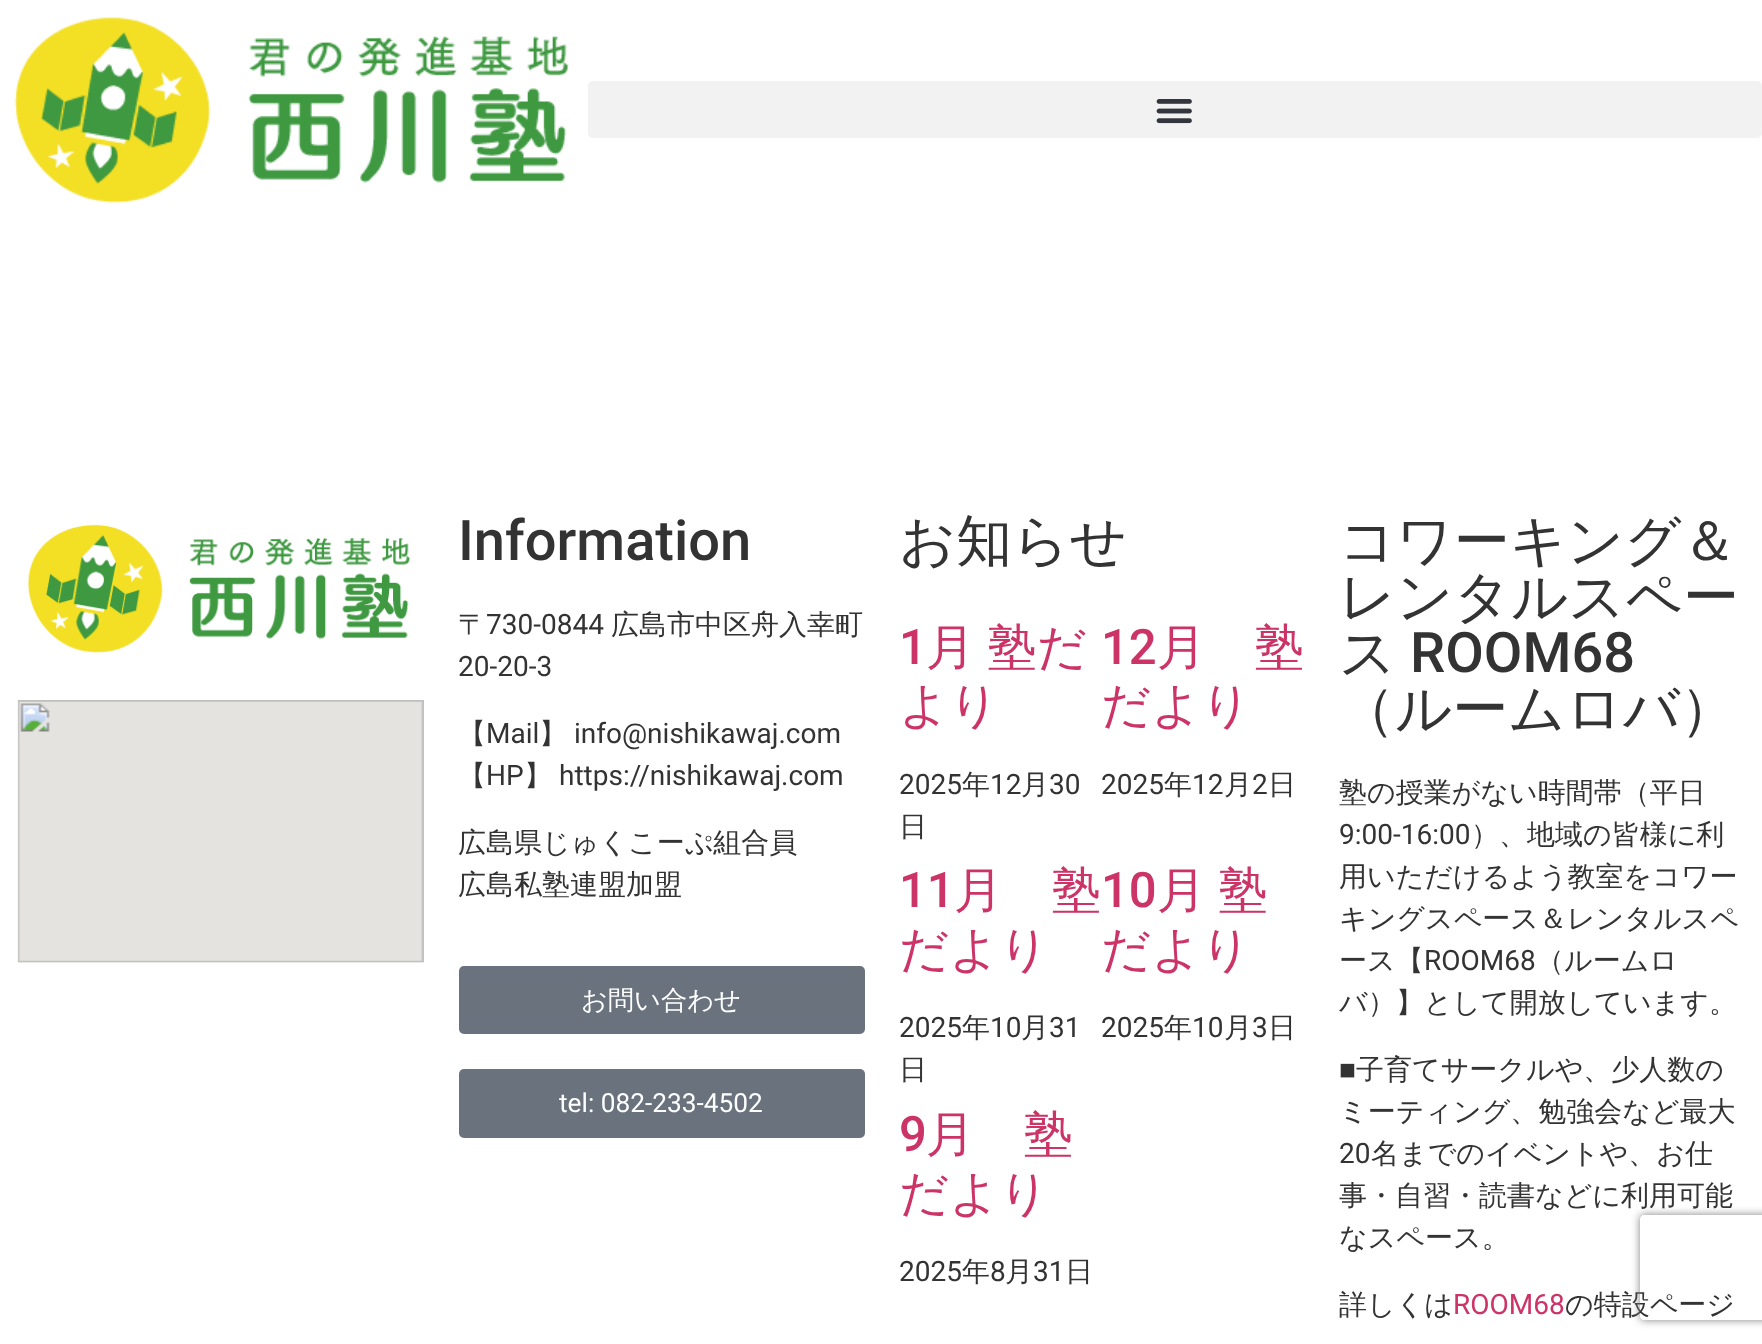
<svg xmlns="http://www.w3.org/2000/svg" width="1762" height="1344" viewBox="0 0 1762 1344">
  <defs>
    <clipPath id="clip1"><path d="M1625 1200H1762V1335H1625ZM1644 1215H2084C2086 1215 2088 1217 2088 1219V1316C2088 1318 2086 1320 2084 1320H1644C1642 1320 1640 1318 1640 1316V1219C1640 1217 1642 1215 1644 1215Z" clip-rule="evenodd"/></clipPath>
  </defs>
  <rect width="100%" height="100%" fill="rgb(255,255,255)"/>
  <image x="14" y="17" width="555" height="187" href="pic1.png"/>
  <rect x="588" y="81" width="1174" height="57" rx="5" fill="rgb(242,242,242)"/>
  <image x="1156" y="99" width="36" height="25" href="pic2.png"/>
  <image x="27" y="524" width="384" height="129" href="pic3.png"/>
  <image x="17" y="700" width="407" height="263" href="pic4.png"/>
  <text x="458" y="560" font-family="Roboto" font-size="56" font-weight="500" fill="rgb(51,51,51)">Information</text>
  <text x="458" y="634" font-family="WenQuanYi Zen Hei" font-size="28" font-weight="500" fill="rgb(51,51,51)">〒</text>
  <text x="486" y="634" font-family="Roboto" font-size="28" fill="rgb(51,51,51)">730-0844</text>
  <text x="611" y="634" font-family="WenQuanYi Zen Hei" font-size="28" font-weight="500" fill="rgb(51,51,51)">広島市中区舟入幸町</text>
  <text x="458" y="676" font-family="Roboto" font-size="28" fill="rgb(51,51,51)">20-20-3</text>
  <text x="458" y="743" font-family="WenQuanYi Zen Hei" font-size="28" font-weight="500" fill="rgb(51,51,51)">【</text>
  <text x="486" y="743" font-family="Roboto" font-size="28" fill="rgb(51,51,51)">Mail</text>
  <text x="539" y="743" font-family="WenQuanYi Zen Hei" font-size="28" font-weight="500" fill="rgb(51,51,51)">】</text>
  <text x="574" y="743" font-family="Roboto" font-size="28" fill="rgb(51,51,51)">info@nishikawaj.com</text>
  <text x="458" y="785" font-family="WenQuanYi Zen Hei" font-size="28" font-weight="500" fill="rgb(51,51,51)">【</text>
  <text x="486" y="785" font-family="Roboto" font-size="28" fill="rgb(51,51,51)">HP</text>
  <text x="524" y="785" font-family="WenQuanYi Zen Hei" font-size="28" font-weight="500" fill="rgb(51,51,51)">】</text>
  <text x="559" y="785" font-family="Roboto" font-size="28" fill="rgb(51,51,51)">https://nishikawaj.com</text>
  <g font-family="WenQuanYi Zen Hei" font-size="28" font-weight="500" fill="rgb(51,51,51)">
    <text>
      <tspan x="458" y="852">広島県じゅくこーぷ組合員</tspan>
      <tspan x="458" y="894">広島私塾連盟加盟</tspan>
    </text>
  </g>
  <rect x="459" y="966" width="406" height="68" rx="5" fill="rgb(105,114,125)"/>
  <text x="581" y="1009" font-family="WenQuanYi Zen Hei" font-size="26.25" font-weight="500" fill="rgb(255,255,255)">お問い合わせ</text>
  <rect x="459" y="1069" width="406" height="69" rx="5" fill="rgb(105,114,125)"/>
  <text x="559" y="1112" font-family="Roboto" font-size="26.25" fill="rgb(255,255,255)">tel: 082-233-4502</text>
  <text x="899" y="560" font-family="WenQuanYi Zen Hei" font-size="56" font-weight="500" fill="rgb(51,51,51)">お知らせ</text>
  <text x="899" y="664" font-family="Roboto" font-size="49" font-weight="500" fill="rgb(204,51,102)">1</text>
  <g font-family="WenQuanYi Zen Hei" font-size="49" font-weight="500" fill="rgb(204,51,102)">
    <text x="926" y="664" word-spacing="-2">月 塾だ</text>
    <text x="899" y="722">より</text>
  </g>
  <text x="899" y="794" font-family="Roboto" font-size="28" fill="rgb(51,51,51)">2025</text>
  <text x="962" y="794" font-family="WenQuanYi Zen Hei" font-size="28" font-weight="500" fill="rgb(51,51,51)">年</text>
  <text x="990" y="794" font-family="Roboto" font-size="28" fill="rgb(51,51,51)">12</text>
  <text x="1021" y="794" font-family="WenQuanYi Zen Hei" font-size="28" font-weight="500" fill="rgb(51,51,51)">月</text>
  <text x="1049" y="794" font-family="Roboto" font-size="28" fill="rgb(51,51,51)">30</text>
  <text x="899" y="836" font-family="WenQuanYi Zen Hei" font-size="28" font-weight="500" fill="rgb(51,51,51)">日</text>
  <text x="1101" y="664" font-family="Roboto" font-size="49" font-weight="500" fill="rgb(204,51,102)">12</text>
  <g font-family="WenQuanYi Zen Hei" font-size="49" font-weight="500" fill="rgb(204,51,102)">
    <text x="1157" y="664">月　塾</text>
    <text x="1101" y="722">だより</text>
  </g>
  <text x="1101" y="794" font-family="Roboto" font-size="28" fill="rgb(51,51,51)">2025</text>
  <text x="1164" y="794" font-family="WenQuanYi Zen Hei" font-size="28" font-weight="500" fill="rgb(51,51,51)">年</text>
  <text x="1192" y="794" font-family="Roboto" font-size="28" fill="rgb(51,51,51)">12</text>
  <text x="1224" y="794" font-family="WenQuanYi Zen Hei" font-size="28" font-weight="500" fill="rgb(51,51,51)">月</text>
  <text x="1252" y="794" font-family="Roboto" font-size="28" fill="rgb(51,51,51)">2</text>
  <text x="1268" y="794" font-family="WenQuanYi Zen Hei" font-size="28" font-weight="500" fill="rgb(51,51,51)">日</text>
  <text x="899" y="907" font-family="Roboto" font-size="49" font-weight="500" fill="rgb(204,51,102)">11</text>
  <g font-family="WenQuanYi Zen Hei" font-size="49" font-weight="500" fill="rgb(204,51,102)">
    <text x="954" y="907">月　塾</text>
    <text x="899" y="966">だより</text>
  </g>
  <text x="899" y="1037" font-family="Roboto" font-size="28" fill="rgb(51,51,51)">2025</text>
  <text x="962" y="1037" font-family="WenQuanYi Zen Hei" font-size="28" font-weight="500" fill="rgb(51,51,51)">年</text>
  <text x="990" y="1037" font-family="Roboto" font-size="28" fill="rgb(51,51,51)">10</text>
  <text x="1021" y="1037" font-family="WenQuanYi Zen Hei" font-size="28" font-weight="500" fill="rgb(51,51,51)">月</text>
  <text x="1049" y="1037" font-family="Roboto" font-size="28" fill="rgb(51,51,51)">31</text>
  <text x="899" y="1079" font-family="WenQuanYi Zen Hei" font-size="28" font-weight="500" fill="rgb(51,51,51)">日</text>
  <text x="1101" y="907" font-family="Roboto" font-size="49" font-weight="500" fill="rgb(204,51,102)">10</text>
  <g font-family="WenQuanYi Zen Hei" font-size="49" font-weight="500" fill="rgb(204,51,102)">
    <text x="1157" y="907" word-spacing="-2">月 塾</text>
    <text x="1101" y="966">だより</text>
  </g>
  <text x="1101" y="1037" font-family="Roboto" font-size="28" fill="rgb(51,51,51)">2025</text>
  <text x="1164" y="1037" font-family="WenQuanYi Zen Hei" font-size="28" font-weight="500" fill="rgb(51,51,51)">年</text>
  <text x="1192" y="1037" font-family="Roboto" font-size="28" fill="rgb(51,51,51)">10</text>
  <text x="1224" y="1037" font-family="WenQuanYi Zen Hei" font-size="28" font-weight="500" fill="rgb(51,51,51)">月</text>
  <text x="1252" y="1037" font-family="Roboto" font-size="28" fill="rgb(51,51,51)">3</text>
  <text x="1268" y="1037" font-family="WenQuanYi Zen Hei" font-size="28" font-weight="500" fill="rgb(51,51,51)">日</text>
  <text x="899" y="1151" font-family="Roboto" font-size="49" font-weight="500" fill="rgb(204,51,102)">9</text>
  <g font-family="WenQuanYi Zen Hei" font-size="49" font-weight="500" fill="rgb(204,51,102)">
    <text x="926" y="1151">月　塾</text>
    <text x="899" y="1210">だより</text>
  </g>
  <text x="899" y="1281" font-family="Roboto" font-size="28" fill="rgb(51,51,51)">2025</text>
  <text x="962" y="1281" font-family="WenQuanYi Zen Hei" font-size="28" font-weight="500" fill="rgb(51,51,51)">年</text>
  <text x="990" y="1281" font-family="Roboto" font-size="28" fill="rgb(51,51,51)">8</text>
  <text x="1005" y="1281" font-family="WenQuanYi Zen Hei" font-size="28" font-weight="500" fill="rgb(51,51,51)">月</text>
  <text x="1033" y="1281" font-family="Roboto" font-size="28" fill="rgb(51,51,51)">31</text>
  <text x="1065" y="1281" font-family="WenQuanYi Zen Hei" font-size="28" font-weight="500" fill="rgb(51,51,51)">日</text>
  <g font-family="WenQuanYi Zen Hei" font-size="56" font-weight="500" fill="rgb(51,51,51)">
    <text>
      <tspan x="1339" y="560">コワーキング＆</tspan>
      <tspan x="1339" y="616">レンタルスペー</tspan>
      <tspan x="1339" y="672">ス</tspan>
    </text>
  </g>
  <text x="1410" y="672" font-family="Roboto" font-size="56" font-weight="500" fill="rgb(51,51,51)">ROOM68</text>
  <text x="1339" y="728" font-family="WenQuanYi Zen Hei" font-size="56" font-weight="500" fill="rgb(51,51,51)">（ルームロバ）</text>
  <text x="1339" y="802" font-family="WenQuanYi Zen Hei" font-size="28" font-weight="500" fill="rgb(51,51,51)">塾の授業がない時間帯（平日</text>
  <text x="1339" y="844" font-family="Roboto" font-size="28" fill="rgb(51,51,51)">9:00-16:00</text>
  <g font-family="WenQuanYi Zen Hei" font-size="28" font-weight="500" fill="rgb(51,51,51)">
    <text x="1471" y="844">）、地域の皆様に利</text>
    <text>
      <tspan x="1339" y="886">用いただけるよう教室をコワー</tspan>
      <tspan x="1339" y="928">キングスペース＆レンタルスペ</tspan>
      <tspan x="1339" y="970">ース【</tspan>
    </text>
  </g>
  <text x="1424" y="970" font-family="Roboto" font-size="28" fill="rgb(51,51,51)">ROOM68</text>
  <g font-family="WenQuanYi Zen Hei" font-size="28" font-weight="500" fill="rgb(51,51,51)">
    <text x="1536" y="970">（ルームロ</text>
    <text x="1339" y="1012">バ）】として開放しています。</text>
  </g>
  <text x="1339" y="1079" font-family="Liberation Sans" font-size="28" fill="rgb(51,51,51)">■</text>
  <g font-family="WenQuanYi Zen Hei" font-size="28" font-weight="500" fill="rgb(51,51,51)">
    <text x="1356" y="1079">子育てサークルや、少人数の</text>
    <text x="1339" y="1121">ミーティング、勉強会など最大</text>
  </g>
  <text x="1339" y="1163" font-family="Roboto" font-size="28" fill="rgb(51,51,51)">20</text>
  <g font-family="WenQuanYi Zen Hei" font-size="28" font-weight="500" fill="rgb(51,51,51)">
    <text x="1371" y="1163">名までのイベントや、お仕</text>
    <text>
      <tspan x="1339" y="1205">事・自習・読書などに利用可能</tspan>
      <tspan x="1339" y="1247">なスペース。</tspan>
    </text>
    <text x="1339" y="1314">詳しくは</text>
  </g>
  <text x="1453" y="1314" font-family="Roboto" font-size="28" fill="rgb(204,51,102)">ROOM68</text>
  <text x="1565" y="1314" font-family="WenQuanYi Zen Hei" font-size="28" font-weight="500" fill="rgb(51,51,51)">の特設ページ</text>
  <g clip-path="url(#clip1)">
    <rect x="1640" y="1215" width="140" height="105" rx="4" fill="rgb(128,128,128)" filter="blur(4.5px)"/>
  </g>
</svg>
